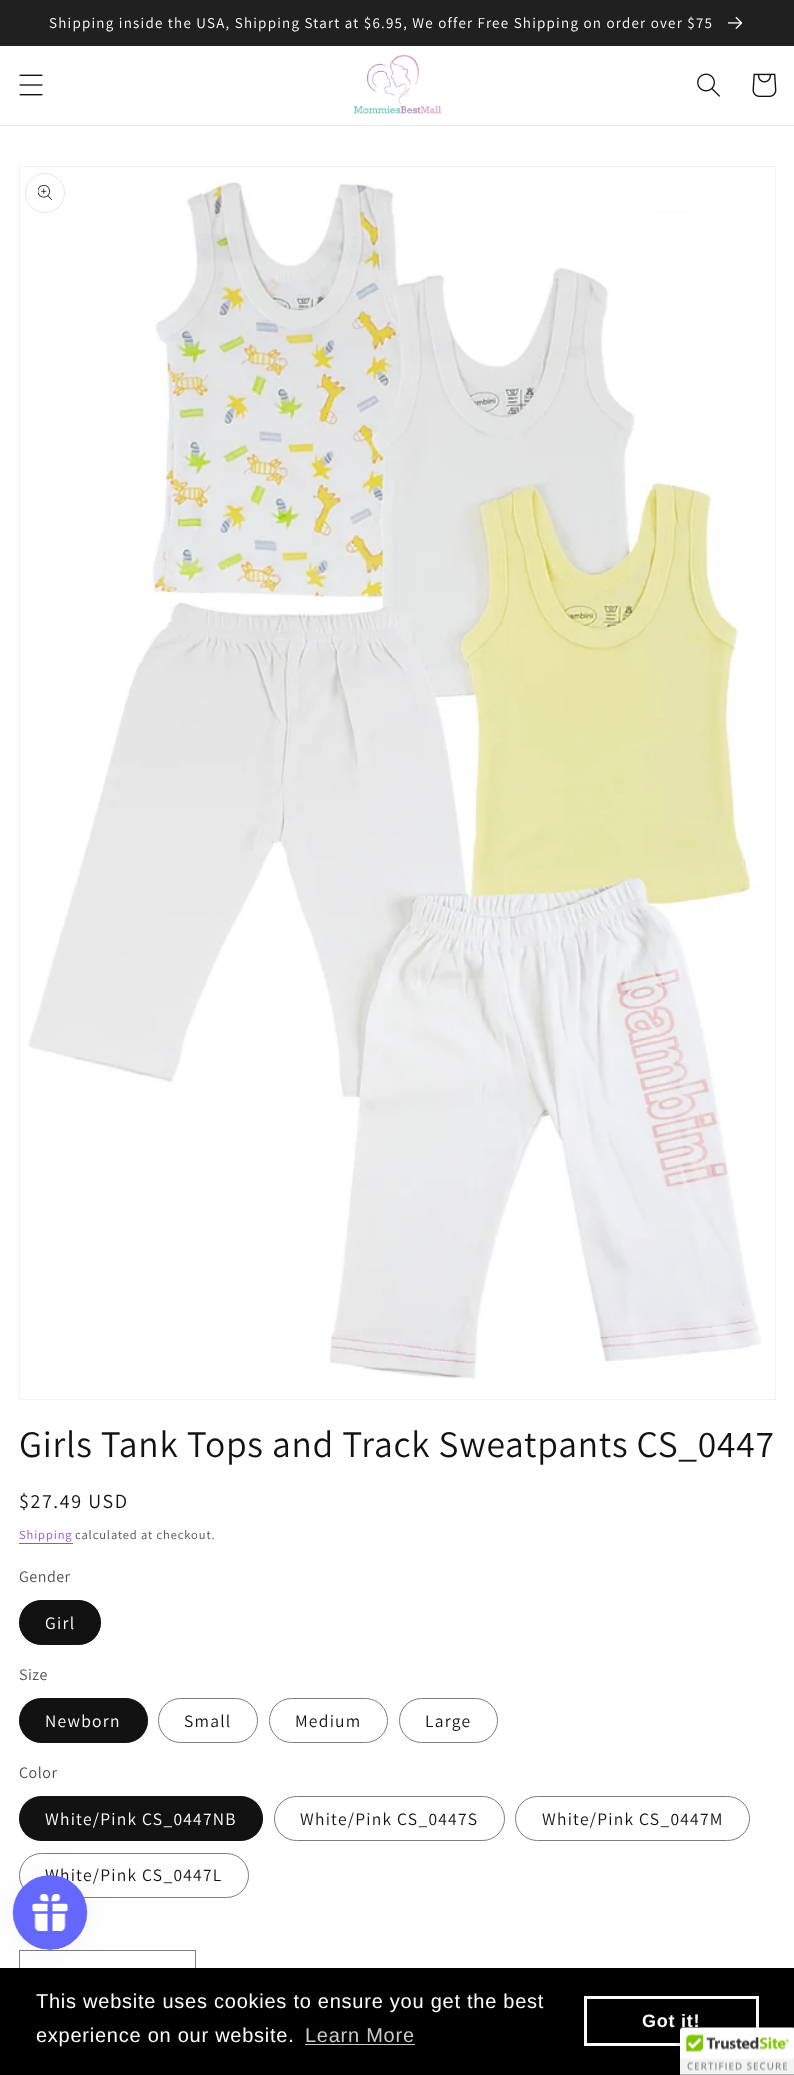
<svg xmlns="http://www.w3.org/2000/svg" width="794" height="2075" viewBox="0 0 794 2075">
  <rect width="100%" height="100%" fill="rgb(255,255,255)"/>
  <rect x="0" y="45" width="794" height="1" fill="rgb(37,37,37)"/>
  <rect x="0" y="0" width="794" height="45" fill="rgb(32,32,32)"/>
  <text x="49" y="28" font-family="Assistant" font-size="15" letter-spacing="1.25" fill="rgb(255,255,255)">Shipping inside the USA, Shipping Start at $6.95, We offer Free Shipping on order over $75</text>
  <image x="728" y="16" width="15" height="13" href="pic1.png"/>
  <rect x="0" y="125" width="794" height="1" fill="rgb(236,236,236)"/>
  <image x="19" y="74" width="24" height="22" href="pic2.png"/>
  <image x="353" y="55" width="89" height="59" href="pic3.png"/>
  <image x="697" y="73" width="23" height="24" href="pic4.png"/>
  <image x="752" y="73" width="25" height="24" href="pic5.png"/>
  <rect x="19.5" y="166.5" width="756" height="1233" fill="none" stroke="rgb(243,243,243)"/>
  <image x="28" y="182" width="734" height="1198" href="pic6.png"/>
  <circle cx="45" cy="193" r="19.5" fill="none" stroke="rgb(231,231,231)"/>
  <image x="38" y="185" width="14" height="15" href="pic7.png"/>
  <text x="19" y="1457" font-family="Assistant" font-size="37.5" letter-spacing="0.75" fill="rgb(18,18,18)">Girls Tank Tops and Track Sweatpants CS_0447</text>
  <text x="19" y="1508" font-family="Assistant" font-size="20" letter-spacing="1.6" fill="rgb(18,18,18)">$27.49 USD</text>
  <text x="19" y="1539" font-family="Assistant" font-size="12.5" letter-spacing="0.9" fill="rgb(141,85,210)">Shipping</text>
  <rect x="19" y="1543" width="54" height="1" fill="rgb(141,85,210)"/>
  <text x="75" y="1539" font-family="Assistant" font-size="12.5" letter-spacing="0.9" fill="rgb(77,77,77)">calculated at checkout.</text>
  <text x="19" y="1582" font-family="Assistant" font-size="16" letter-spacing="0.5" fill="rgb(77,77,77)">Gender</text>
  <rect x="19" y="1600" width="82" height="45" rx="22.5" fill="rgb(18,18,18)"/>
  <rect x="19.5" y="1600.5" width="81" height="44" rx="22" fill="none" stroke="rgba(18,18,18,0.55)"/>
  <text x="45" y="1629" font-family="Assistant" font-size="17.5" letter-spacing="1.25" fill="rgb(255,255,255)">Girl</text>
  <text x="19" y="1680" font-family="Assistant" font-size="16" letter-spacing="0.5" fill="rgb(77,77,77)">Size</text>
  <rect x="19" y="1698" width="129" height="45" rx="22.5" fill="rgb(18,18,18)"/>
  <rect x="19.5" y="1698.5" width="128" height="44" rx="22" fill="none" stroke="rgba(18,18,18,0.55)"/>
  <text x="45" y="1727" font-family="Assistant" font-size="17.5" letter-spacing="1.25" fill="rgb(255,255,255)">Newborn</text>
  <rect x="158.5" y="1698.5" width="99" height="44" rx="22" fill="none" stroke="rgb(125,125,125)"/>
  <text x="184" y="1727" font-family="Assistant" font-size="17.5" letter-spacing="1.25" fill="rgb(18,18,18)">Small</text>
  <rect x="269.5" y="1698.5" width="118" height="44" rx="22" fill="none" stroke="rgb(125,125,125)"/>
  <text x="295" y="1727" font-family="Assistant" font-size="17.5" letter-spacing="1.25" fill="rgb(18,18,18)">Medium</text>
  <rect x="399.5" y="1698.5" width="98" height="44" rx="22" fill="none" stroke="rgb(125,125,125)"/>
  <text x="425" y="1727" font-family="Assistant" font-size="17.5" letter-spacing="1.25" fill="rgb(18,18,18)">Large</text>
  <text x="19" y="1778" font-family="Assistant" font-size="16" letter-spacing="0.5" fill="rgb(77,77,77)">Color</text>
  <rect x="19" y="1796" width="244" height="45" rx="22.5" fill="rgb(18,18,18)"/>
  <rect x="19.5" y="1796.5" width="243" height="44" rx="22" fill="none" stroke="rgba(18,18,18,0.55)"/>
  <text x="45" y="1825" font-family="Assistant" font-size="17.5" letter-spacing="1.25" fill="rgb(255,255,255)">White/Pink CS_0447NB</text>
  <rect x="274.5" y="1796.5" width="230" height="44" rx="22" fill="none" stroke="rgb(125,125,125)"/>
  <text x="300" y="1825" font-family="Assistant" font-size="17.5" letter-spacing="1.25" fill="rgb(18,18,18)">White/Pink CS_0447S</text>
  <rect x="515.5" y="1796.5" width="234" height="44" rx="22" fill="none" stroke="rgb(125,125,125)"/>
  <text x="542" y="1825" font-family="Assistant" font-size="17.5" letter-spacing="1.25" fill="rgb(18,18,18)">White/Pink CS_0447M</text>
  <rect x="19.5" y="1853.5" width="229" height="44" rx="22" fill="none" stroke="rgb(125,125,125)"/>
  <text x="45" y="1881" font-family="Assistant" font-size="17.5" letter-spacing="1.25" fill="rgb(18,18,18)">White/Pink CS_0447L</text>
  <rect x="19.5" y="1950.5" width="176" height="58" fill="none" stroke="rgb(125,125,125)"/>
  <rect x="0" y="1968" width="794" height="107" fill="rgb(0,0,0)"/>
  <rect x="13" y="1875" width="75" height="75" rx="37.5" fill="rgba(0,0,0,0.05)" filter="blur(15.5px)"/>
  <image x="12" y="1875" width="76" height="75" href="pic8.png"/>
  <g font-family="Liberation Sans" font-size="20" letter-spacing="0.75" fill="rgb(255,255,255)">
    <text>
      <tspan x="36" y="2008">This website uses cookies to ensure you get the best</tspan>
      <tspan x="36" y="2042">experience on our website.</tspan>
    </text>
  </g>
  <text x="305" y="2042" font-family="Liberation Sans" font-size="20" letter-spacing="0.75" fill="rgb(204,204,204)">Learn More</text>
  <rect x="305" y="2044" width="110" height="1" fill="rgb(204,204,204)"/>
  <rect x="585.5" y="1997.5" width="172" height="47" fill="none" stroke="rgb(250,250,250)" stroke-width="3"/>
  <text x="642" y="2027" font-family="Liberation Sans" font-size="18" font-weight="bold" letter-spacing="0.75" fill="rgb(255,255,255)">Got it!</text>
  <rect x="680" y="2028" width="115" height="47" rx="2.5" fill="rgba(0,0,0,0.2)" filter="blur(3px)"/>
  <image x="680" y="2027" width="114" height="48" href="pic9.png"/>
</svg>
